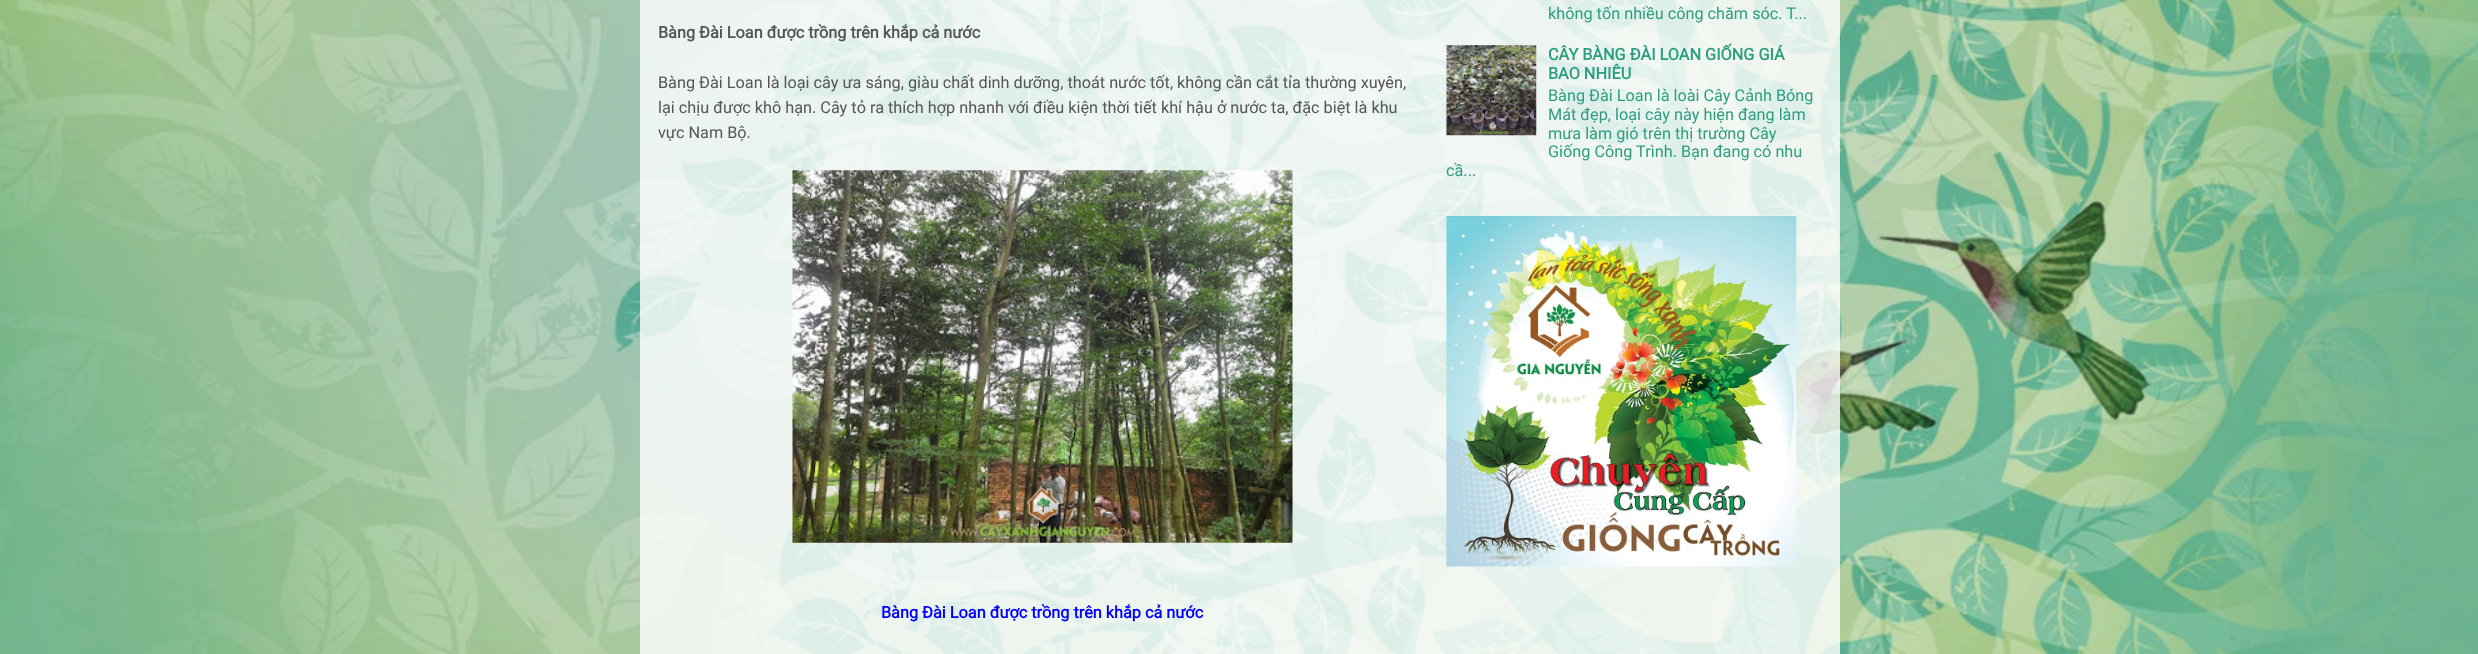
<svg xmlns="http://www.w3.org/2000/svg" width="2478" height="654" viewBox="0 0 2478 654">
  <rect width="100%" height="100%" fill="rgb(255,255,255)"/>
  <image x="0" y="0" width="2478" height="654" href="pic1.png"/>
  <rect x="640" y="0" width="1200" height="654" fill="rgba(255,255,255,0.8)"/>
  <text x="658" y="38" font-family="Roboto" font-size="16.25" font-weight="bold" fill="rgb(85,85,85)">Bàng Đài Loan được trồng trên khắp cả nước</text>
  <g font-family="Roboto" font-size="16.25" fill="rgb(85,85,85)">
    <text>
      <tspan x="658" y="88">Bàng Đài Loan là loại cây ưa sáng, giàu chất dinh dưỡng, thoát nước tốt, không cần cắt tỉa thường xuyên,</tspan>
      <tspan x="658" y="113">lại chịu được khô hạn. Cây tỏ ra thích hợp nhanh với điều kiện thời tiết khí hậu ở nước ta, đặc biệt là khu</tspan>
      <tspan x="658" y="138">vực Nam Bộ.</tspan>
    </text>
  </g>
  <image x="792" y="170" width="501" height="373" href="pic2.png"/>
  <text x="881" y="618" font-family="Roboto" font-size="16.25" font-weight="bold" fill="rgb(0,0,255)">Bàng Đài Loan được trồng trên khắp cả nước</text>
  <text x="1548" y="19" font-family="Roboto" font-size="16.25" fill="rgb(44,158,128)">không tốn nhiều công chăm sóc. T...</text>
  <image x="1446" y="45" width="91" height="91" href="pic3.png"/>
  <g font-family="Roboto" font-size="16.25" font-weight="bold" fill="rgb(44,158,128)">
    <text>
      <tspan x="1548" y="60">CÂY BÀNG ĐÀI LOAN GIỐNG GIÁ</tspan>
      <tspan x="1548" y="79">BAO NHIÊU</tspan>
    </text>
  </g>
  <g font-family="Roboto" font-size="16.25" fill="rgb(44,158,128)">
    <text>
      <tspan x="1548" y="101">Bàng Đài Loan là loài Cây Cảnh Bóng</tspan>
      <tspan x="1548" y="120">Mát đẹp, loại cây này hiện đang làm</tspan>
      <tspan x="1548" y="139">mưa làm gió trên thị trường Cây</tspan>
      <tspan x="1548" y="157">Giống Công Trình. Bạn đang có nhu</tspan>
    </text>
    <text x="1446" y="176">cầ...</text>
  </g>
  <image x="1446" y="215" width="351" height="352" href="pic4.png"/>
</svg>
